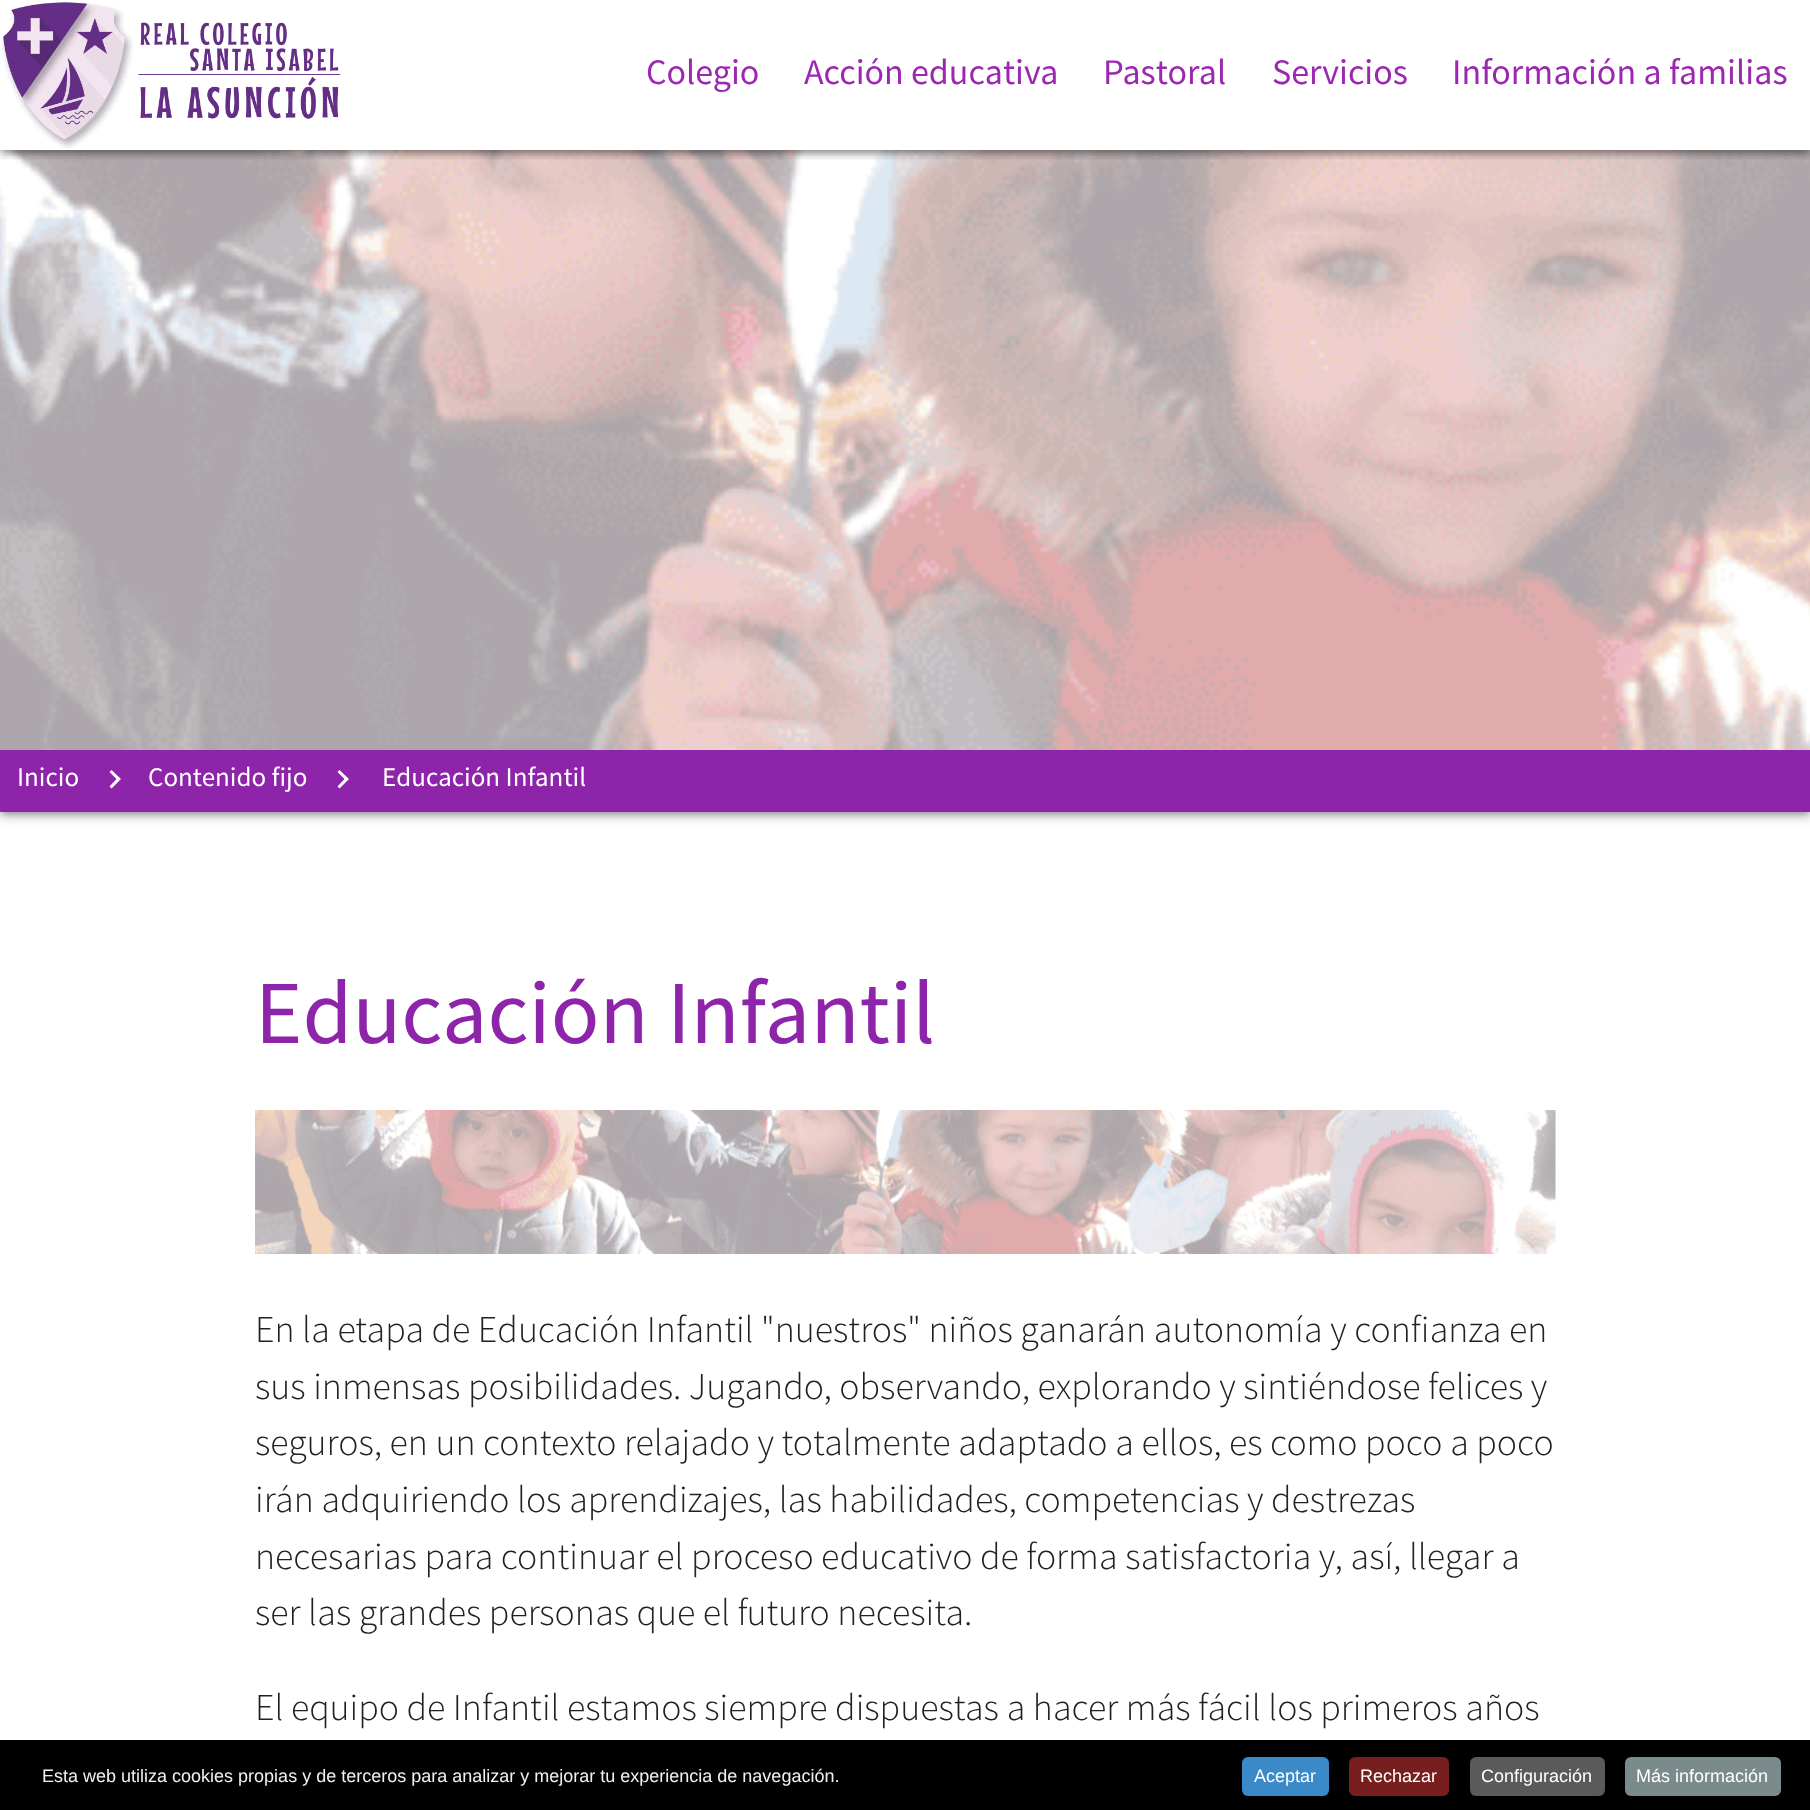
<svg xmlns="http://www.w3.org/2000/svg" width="1810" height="1810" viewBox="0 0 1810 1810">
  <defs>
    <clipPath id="clip1"><rect x="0" y="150" width="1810" height="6"/></clipPath>
    <clipPath id="clip2"><rect x="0" y="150" width="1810" height="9"/></clipPath>
    <clipPath id="clip3"><rect x="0" y="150" width="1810" height="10"/></clipPath>
  </defs>
  <rect width="100%" height="100%" fill="rgb(255,255,255)"/>
  <rect x="2" y="755" width="1807" height="58" fill="rgba(0,0,0,0.3)" filter="blur(3px)"/>
  <rect x="0" y="752" width="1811" height="61" fill="rgba(0,0,0,0.12)" filter="blur(7.5px)"/>
  <rect x="0" y="756" width="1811" height="62" fill="rgba(0,0,0,0.14)" filter="blur(4px)"/>
  <image x="0" y="150" width="1810" height="600" href="pic2.png"/>
  <g clip-path="url(#clip1)">
    <rect x="2" y="5" width="1807" height="147" fill="rgba(0,0,0,0.3)" filter="blur(3px)"/>
  </g>
  <g clip-path="url(#clip2)">
    <rect x="0" y="2" width="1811" height="150" fill="rgba(0,0,0,0.12)" filter="blur(7.5px)"/>
  </g>
  <g clip-path="url(#clip3)">
    <rect x="0" y="6" width="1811" height="150" fill="rgba(0,0,0,0.14)" filter="blur(4px)"/>
  </g>
  <image x="1" y="2" width="340" height="147" href="pic1.png"/>
  <g font-family="Source Sans Pro" font-size="36" fill="rgb(156,39,176)">
    <text x="646" y="84">Colegio</text>
    <text x="804" y="84">Acción educativa</text>
    <text x="1103" y="84">Pastoral</text>
    <text x="1272" y="84">Servicios</text>
    <text x="1452" y="84">Información a familias</text>
  </g>
  <rect x="0" y="750" width="1810" height="62" fill="rgb(142,36,170)"/>
  <text x="17" y="786" font-family="Source Sans Pro" font-size="27" fill="rgb(255,255,255)">Inicio</text>
  <path d="M111.5 770L121 779L111.5 788.5L109.5 786.5L116.5 779L109.5 772Z" fill="rgb(255,255,255)"/>
  <text x="148" y="786" font-family="Source Sans Pro" font-size="27" fill="rgb(255,255,255)">Contenido fijo</text>
  <path d="M339.5 770L349 779L339.5 788.5L337.5 786.5L344.5 779L337.5 772Z" fill="rgb(255,255,255)"/>
  <text x="382" y="786" font-family="Source Sans Pro" font-size="27" fill="rgb(255,255,255)">Educación Infantil</text>
  <text x="255" y="1043" font-family="Source Sans Pro" font-size="90" fill="rgb(142,36,170)">Educación Infantil</text>
  <image x="255" y="1110" width="1301" height="144" href="pic3.png"/>
  <g font-family="Source Sans Pro" font-size="37.8" font-weight="300" fill="rgb(33,33,33)">
    <text>
      <tspan x="255" y="1342">En la etapa de Educación Infantil "nuestros" niños ganarán autonomía y confianza en</tspan>
      <tspan x="255" y="1399">sus inmensas posibilidades. Jugando, observando, explorando y sintiéndose felices y</tspan>
      <tspan x="255" y="1455">seguros, en un contexto relajado y totalmente adaptado a ellos, es como poco a poco</tspan>
      <tspan x="255" y="1512">irán adquiriendo los aprendizajes, las habilidades, competencias y destrezas</tspan>
      <tspan x="255" y="1569">necesarias para continuar el proceso educativo de forma satisfactoria y, así, llegar a</tspan>
      <tspan x="255" y="1625">ser las grandes personas que el futuro necesita.</tspan>
    </text>
    <text x="255" y="1720">El equipo de Infantil estamos siempre dispuestas a hacer más fácil los primeros años</text>
  </g>
  <rect x="0" y="1740" width="1810" height="70" fill="rgb(0,0,0)"/>
  <text x="42" y="1782" font-family="Liberation Sans" font-size="18" fill="rgb(241,241,243)">Esta web utiliza cookies propias y de terceros para analizar y mejorar tu experiencia de navegación.</text>
  <rect x="1242" y="1757" width="87" height="39" rx="6" fill="rgb(59,137,199)"/>
  <text x="1254" y="1782" font-family="Liberation Sans" font-size="18" fill="rgb(255,255,255)">Aceptar</text>
  <rect x="1349" y="1757" width="100" height="39" rx="6" fill="rgb(119,31,31)"/>
  <text x="1360" y="1782" font-family="Liberation Sans" font-size="18" fill="rgb(255,255,255)">Rechazar</text>
  <rect x="1470" y="1757" width="135" height="39" rx="6" fill="rgb(90,90,90)"/>
  <text x="1481" y="1782" font-family="Liberation Sans" font-size="18" fill="rgb(255,255,255)">Configuración</text>
  <rect x="1625" y="1757" width="156" height="39" rx="6" fill="rgb(123,138,139)"/>
  <text x="1636" y="1782" font-family="Liberation Sans" font-size="18" fill="rgb(255,255,255)">Más información</text>
</svg>
